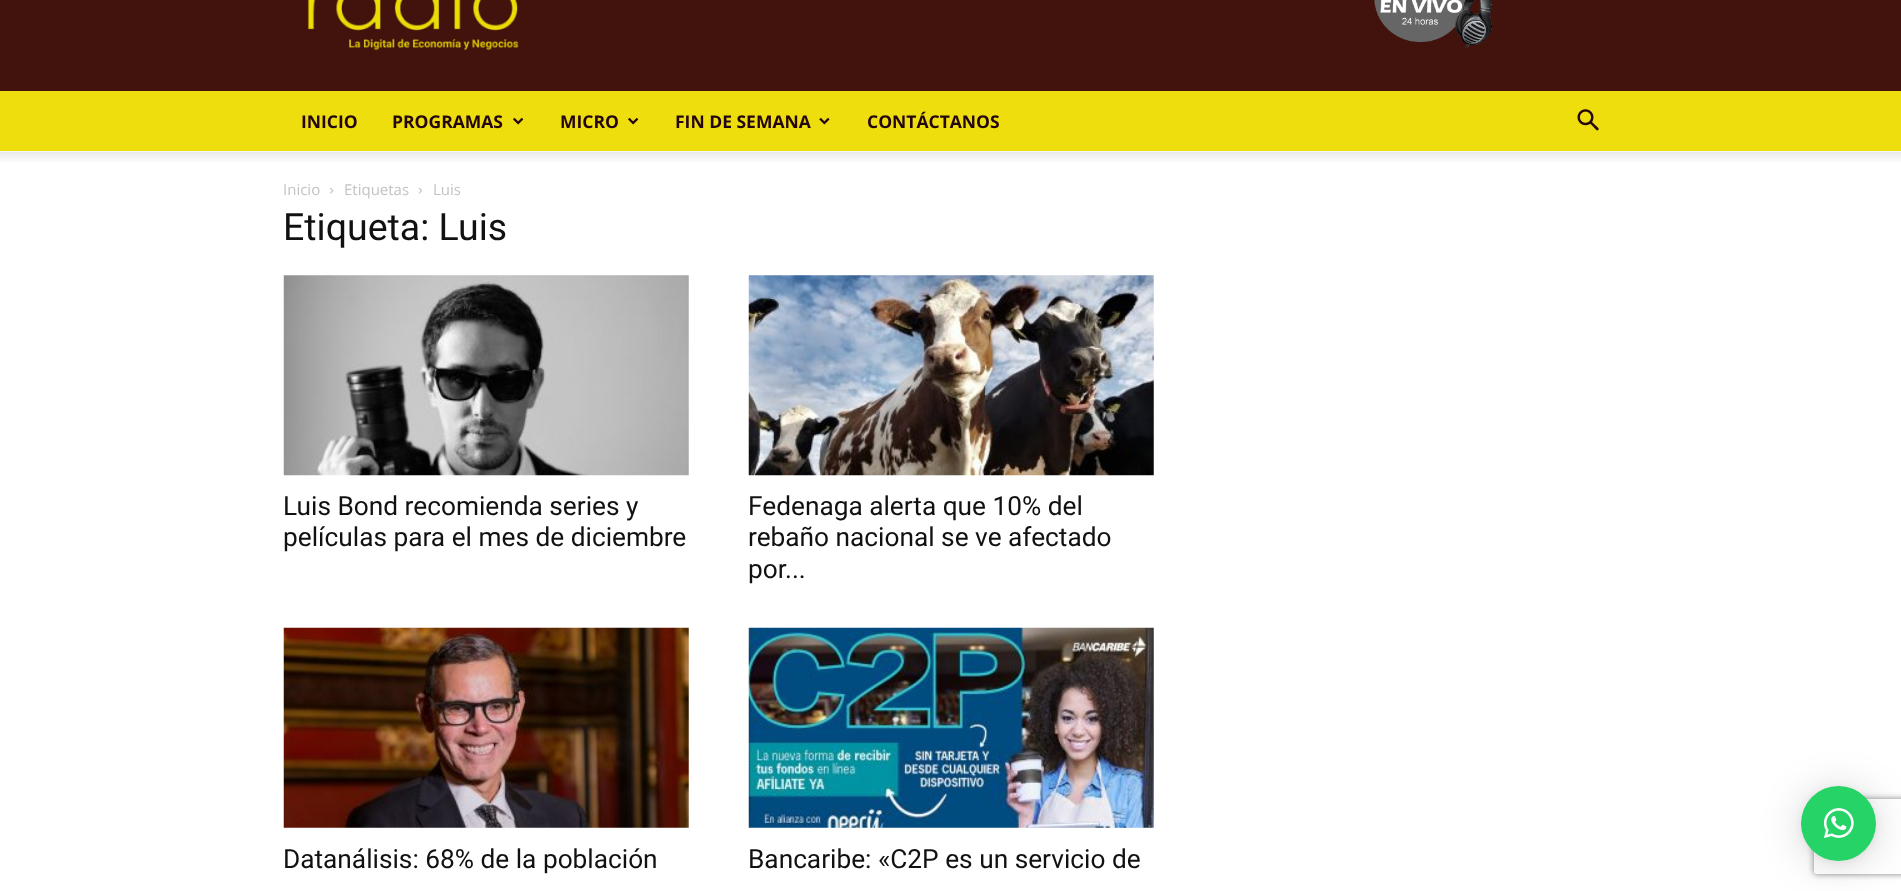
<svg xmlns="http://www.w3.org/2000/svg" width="1901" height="891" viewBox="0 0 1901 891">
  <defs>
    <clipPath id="clip1"><path d="M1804 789H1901V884H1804ZM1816.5 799H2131.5C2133 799 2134 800 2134 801.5V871.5C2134 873 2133 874 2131.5 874H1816.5C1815 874 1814 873 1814 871.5V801.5C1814 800 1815 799 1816.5 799Z" clip-rule="evenodd"/></clipPath>
  </defs>
  <rect width="100%" height="100%" fill="rgb(255,255,255)"/>
  <rect x="0" y="0" width="1901" height="91" fill="rgb(66,18,13)"/>
  <image x="307" y="0" width="212" height="51" href="pic1.png"/>
  <image x="1374" y="0" width="118" height="48" href="pic2.png"/>
  <rect x="0" y="91" width="1901" height="60" fill="rgb(239,222,13)"/>
  <g font-family="Open Sans" font-size="17.5" font-weight="bold" fill="rgb(35,6,14)">
    <text x="301" y="128">INICIO</text>
    <text x="392" y="128">PROGRAMAS</text>
  </g>
  <image x="513" y="117" width="11" height="8" href="pic3.png"/>
  <text x="560" y="128" font-family="Open Sans" font-size="17.5" font-weight="bold" fill="rgb(35,6,14)">MICRO</text>
  <image x="628" y="117" width="11" height="8" href="pic3.png"/>
  <text x="675" y="128" font-family="Open Sans" font-size="17.5" font-weight="bold" fill="rgb(35,6,14)">FIN DE SEMANA</text>
  <image x="819" y="117" width="11" height="8" href="pic4.png"/>
  <text x="867" y="128" font-family="Open Sans" font-size="17.5" font-weight="bold" fill="rgb(35,6,14)">CONTÁCTANOS</text>
  <image x="1577" y="109" width="22" height="22" href="pic5.png"/>
  <image x="0" y="151" width="1901" height="11" href="pic6.png"/>
  <text x="283" y="195" font-family="Open Sans" font-size="15" fill="rgb(195,195,195)">Inicio</text>
  <image x="330" y="187" width="4" height="7" href="pic7.png"/>
  <text x="344" y="195" font-family="Open Sans" font-size="15" fill="rgb(195,195,195)">Etiquetas</text>
  <image x="418" y="187" width="4" height="7" href="pic8.png"/>
  <text x="433" y="195" font-family="Open Sans" font-size="15" fill="rgb(195,195,195)">Luis</text>
  <text x="283" y="240" font-family="Roboto" font-size="37.5" fill="rgb(17,17,17)">Etiqueta: Luis</text>
  <image x="283" y="275" width="406" height="201" href="pic9.png"/>
  <g font-family="Roboto" font-size="26.25" fill="rgb(17,17,17)">
    <text>
      <tspan x="283" y="515">Luis Bond recomienda series y</tspan>
      <tspan x="283" y="546">películas para el mes de diciembre</tspan>
    </text>
  </g>
  <image x="748" y="275" width="406" height="201" href="pic10.png"/>
  <g font-family="Roboto" font-size="26.25" fill="rgb(17,17,17)">
    <text>
      <tspan x="748" y="515">Fedenaga alerta que 10% del</tspan>
      <tspan x="748" y="546">rebaño nacional se ve afectado</tspan>
      <tspan x="748" y="578">por...</tspan>
    </text>
  </g>
  <image x="283" y="627" width="406" height="201" href="pic11.png"/>
  <text x="283" y="868" font-family="Roboto" font-size="26.25" fill="rgb(17,17,17)">Datanálisis: 68% de la población</text>
  <image x="748" y="627" width="406" height="201" href="pic12.png"/>
  <text x="748" y="868" font-family="Roboto" font-size="26.25" fill="rgb(17,17,17)">Bancaribe: «C2P es un servicio de</text>
  <rect x="1801" y="789" width="75" height="75" rx="37.5" fill="rgba(0,0,0,0.16)" filter="blur(20px)"/>
  <rect x="1801" y="788" width="75" height="75" rx="37.5" fill="rgba(0,0,0,0.06)" filter="blur(4px)"/>
  <g clip-path="url(#clip1)">
    <rect x="1814" y="799" width="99" height="75" rx="2.5" fill="rgb(128,128,128)" filter="blur(3px)"/>
  </g>
  <circle cx="1838.5" cy="823.5" r="37.5" fill="rgb(37,211,102)"/>
  <image x="1823" y="808" width="31" height="30" href="pic13.png"/>
</svg>
